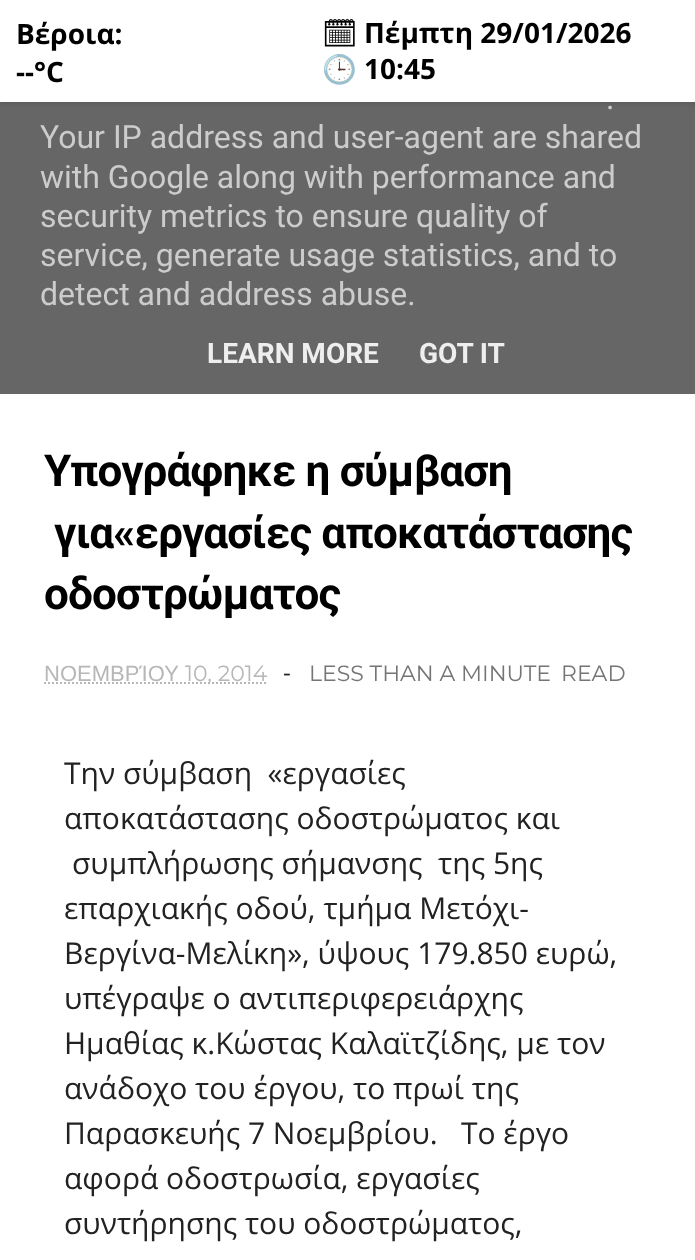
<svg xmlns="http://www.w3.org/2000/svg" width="695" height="1260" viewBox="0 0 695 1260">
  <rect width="100%" height="100%" fill="rgb(255,255,255)"/>
  <rect x="0" y="102" width="695" height="292" fill="rgb(102,102,102)"/>
  <rect x="0" y="0" width="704" height="102" fill="rgba(0,0,0,0.2)" filter="blur(3px)"/>
  <rect x="0" y="0" width="695" height="102" fill="rgb(255,255,255)"/>
  <g font-family="Open Sans" font-size="28" font-weight="bold" fill="rgb(0,0,0)">
    <text>
      <tspan x="16" y="44">Βέροια:</tspan>
      <tspan x="16" y="82">--°C</tspan>
    </text>
  </g>
  <text x="322" y="43" font-family="Noto Emoji" font-size="28" font-weight="bold" fill="rgb(0,0,0)">🗓</text>
  <text x="364" y="43" font-family="Open Sans" font-size="28" font-weight="bold" fill="rgb(0,0,0)">Πέμπτη 29/01/2026</text>
  <text x="322" y="79" font-family="Noto Color Emoji" font-size="28" font-weight="bold" fill="rgb(0,0,0)">🕒</text>
  <text x="364" y="79" font-family="Open Sans" font-size="28" font-weight="bold" fill="rgb(0,0,0)">10:45</text>
  <g font-family="Roboto" font-size="44" font-weight="bold" letter-spacing="-0.8" fill="rgb(0,0,0)">
    <text x="44" y="486">Υπογράφηκε η σύμβαση</text>
    <text x="54" y="548">για«εργασίες αποκατάστασης</text>
    <text x="44" y="609">οδοστρώματος</text>
  </g>
  <text x="44" y="681" font-family="Liberation Sans" font-size="22" fill="rgb(183,183,183)">ΝΟΕΜΒΡΊΟΥ</text>
  <path d="M44 683H267" fill="none" stroke="rgb(183,183,183)" stroke-width="2" stroke-dasharray="2 2"/>
  <text x="185" y="681" font-family="Montserrat" font-size="22" fill="rgb(183,183,183)">10, 2014</text>
  <text x="283" y="681" font-family="Open Sans" font-size="24" fill="rgb(34,34,34)">-</text>
  <g font-family="Montserrat" font-size="22" fill="rgb(117,117,117)">
    <text x="309" y="681">LESS THAN A MINUTE</text>
    <text x="561" y="681">READ</text>
  </g>
  <g font-family="Open Sans" font-size="30" fill="rgb(34,34,34)">
    <text xml:space="preserve"><tspan x="64" y="784">Την σύμβαση  «εργασίες</tspan><tspan x="64" y="829">αποκατάστασης οδοστρώματος και</tspan></text>
    <text x="72" y="874" xml:space="preserve">συμπλήρωσης σήμανσης  της 5ης</text>
    <text>
      <tspan x="64" y="919">επαρχιακής οδού, τμήμα Μετόχι-</tspan>
      <tspan x="64" y="964">Βεργίνα-Μελίκη», ύψους 179.850 ευρώ,</tspan>
      <tspan x="64" y="1009">υπέγραψε ο αντιπεριφερειάρχης</tspan>
      <tspan x="64" y="1054">Ημαθίας κ.Κώστας Καλαϊτζίδης, με τον</tspan>
      <tspan x="64" y="1099">ανάδοχο του έργου, το πρωί της</tspan>
      <tspan x="64" y="1144">Παρασκευής 7 Νοεμβρίου.</tspan>
    </text>
    <text x="461" y="1144">Το έργο</text>
    <text>
      <tspan x="64" y="1189">αφορά οδοστρωσία, εργασίες</tspan>
      <tspan x="64" y="1234">συντήρησης του οδοστρώματος,</tspan>
    </text>
  </g>
  <g font-family="Roboto" font-size="32" fill="rgb(204,204,204)">
    <text x="606" y="109">.</text>
    <text>
      <tspan x="40" y="148">Your IP address and user-agent are shared</tspan>
      <tspan x="40" y="188">with Google along with performance and</tspan>
      <tspan x="40" y="227">security metrics to ensure quality of</tspan>
      <tspan x="40" y="266">service, generate usage statistics, and to</tspan>
      <tspan x="40" y="305">detect and address abuse.</tspan>
    </text>
  </g>
  <g font-family="Roboto" font-size="28" font-weight="bold" fill="rgb(238,238,238)">
    <text x="207" y="363">LEARN MORE</text>
    <text x="419" y="363" word-spacing="-1">GOT IT</text>
  </g>
</svg>
